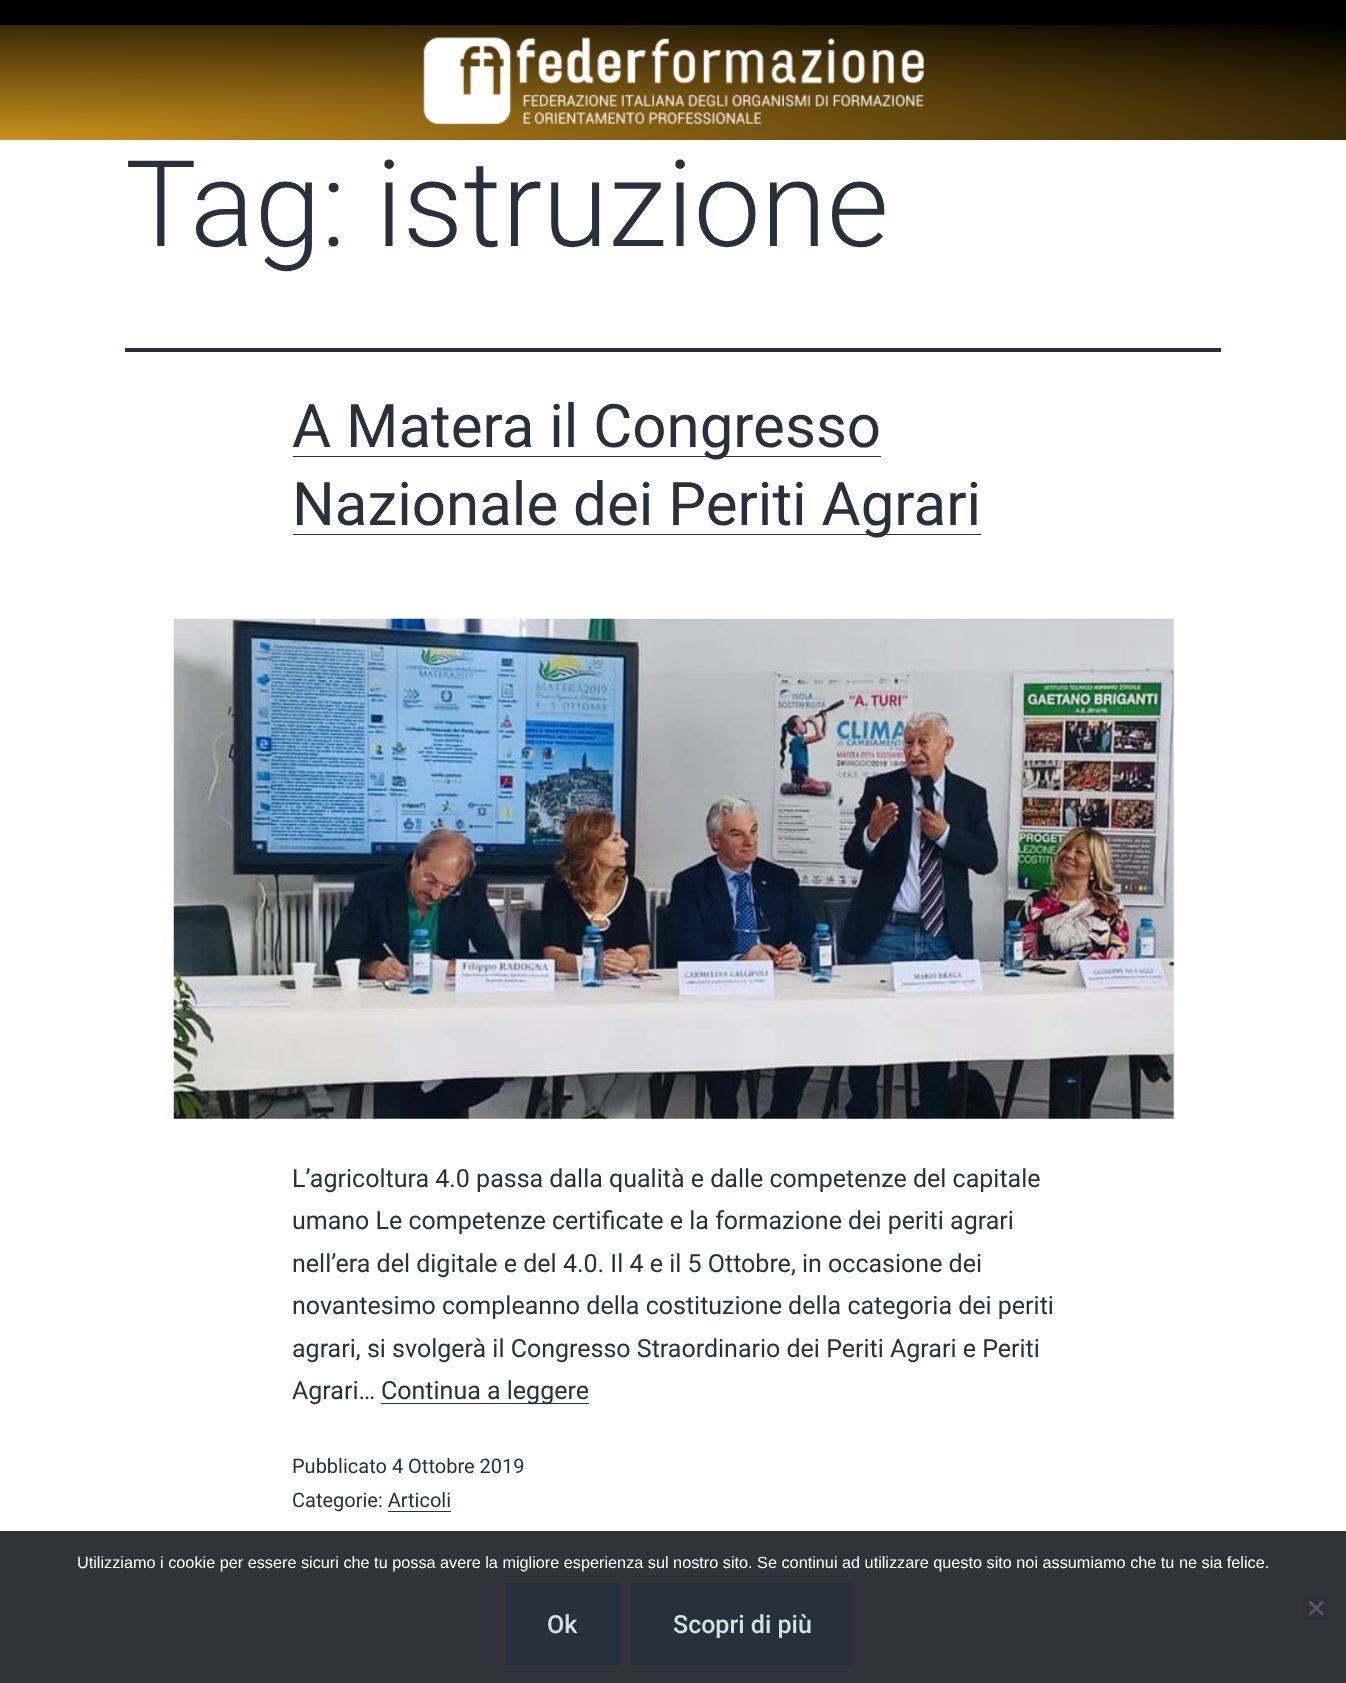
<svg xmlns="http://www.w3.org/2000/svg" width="1346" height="1683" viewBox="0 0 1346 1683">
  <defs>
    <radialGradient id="g1" gradientUnits="userSpaceOnUse" cx="0" cy="0" r="1" gradientTransform="matrix(1904 0 0 163 0 140)"><stop offset="0" stop-color="rgb(202,144,29)"/><stop offset="1" stop-color="rgb(0,0,0)"/></radialGradient>
  </defs>
  <rect width="100%" height="100%" fill="rgb(255,255,255)"/>
  <rect x="0" y="0" width="1346" height="25" fill="rgb(0,0,0)"/>
  <rect x="0" y="25" width="1346" height="115" fill="url(#g1)"/>
  <image x="423" y="37" width="501" height="88" href="pic1.png"/>
  <rect x="125" y="348" width="1096" height="4" fill="rgb(40,48,61)"/>
  <text x="125" y="246" font-family="Roboto" font-size="120" font-weight="300" fill="rgb(40,48,61)">Tag: istruzione</text>
  <rect x="293" y="456" width="588" height="1" fill="rgb(40,48,61)"/>
  <text x="292" y="447" font-family="Roboto" font-size="60" fill="rgb(40,48,61)">A Matera il Congresso</text>
  <rect x="293" y="534" width="688" height="1" fill="rgb(40,48,61)"/>
  <text x="292" y="525" font-family="Roboto" font-size="60" fill="rgb(40,48,61)">Nazionale dei Periti Agrari</text>
  <image x="173" y="618" width="1001" height="501" href="pic2.png"/>
  <g font-family="Roboto" font-size="25" fill="rgb(40,48,61)">
    <text>
      <tspan x="292" y="1187">L’agricoltura 4.0 passa dalla qualità e dalle competenze del capitale</tspan>
      <tspan x="292" y="1229">umano Le competenze certificate e la formazione dei periti agrari</tspan>
      <tspan x="292" y="1272">nell’era del digitale e del 4.0. Il 4 e il 5 Ottobre, in occasione dei</tspan>
      <tspan x="292" y="1314">novantesimo compleanno della costituzione della categoria dei periti</tspan>
      <tspan x="292" y="1357">agrari, si svolgerà il Congresso Straordinario dei Periti Agrari e Periti</tspan>
      <tspan x="292" y="1399">Agrari…</tspan>
    </text>
  </g>
  <rect x="381" y="1403" width="208" height="1" fill="rgb(40,48,61)"/>
  <text x="381" y="1399" font-family="Roboto" font-size="25" fill="rgb(40,48,61)">Continua a leggere</text>
  <g font-family="Roboto" font-size="20" fill="rgb(40,48,61)">
    <text>
      <tspan x="292" y="1473">Pubblicato 4 Ottobre 2019</tspan>
      <tspan x="292" y="1507">Categorie: Articoli</tspan>
    </text>
  </g>
  <rect x="388" y="1511" width="63" height="1" fill="rgb(40,48,61)"/>
  <rect x="0" y="1531" width="1346" height="152" fill="rgb(50,50,58)"/>
  <text x="77" y="1568" font-family="Liberation Sans" font-size="16.25" fill="rgb(255,255,255)">Utilizziamo i cookie per essere sicuri che tu possa avere la migliore esperienza sul nostro sito. Se continui ad utilizzare questo sito noi assumiamo che tu ne sia felice.</text>
  <rect x="1303" y="1595" width="25" height="25" fill="rgb(45,49,60)"/>
  <path d="M1322 1600.5L1324 1602.5L1310.5 1615.5L1308.5 1614Z" fill="rgb(89,89,93)"/>
  <path d="M1308.5 1602.5L1310.5 1600.5L1324 1614L1322 1615.5Z" fill="rgb(89,89,93)"/>
  <rect x="506" y="1583" width="113" height="82" fill="rgb(40,48,61)"/>
  <text x="547" y="1633" font-family="Roboto" font-size="25" font-weight="500" fill="rgb(209,228,221)">Ok</text>
  <rect x="631" y="1583" width="222" height="82" fill="rgb(40,48,61)"/>
  <text x="673" y="1633" font-family="Roboto" font-size="25" font-weight="500" fill="rgb(209,228,221)">Scopri di più</text>
</svg>
